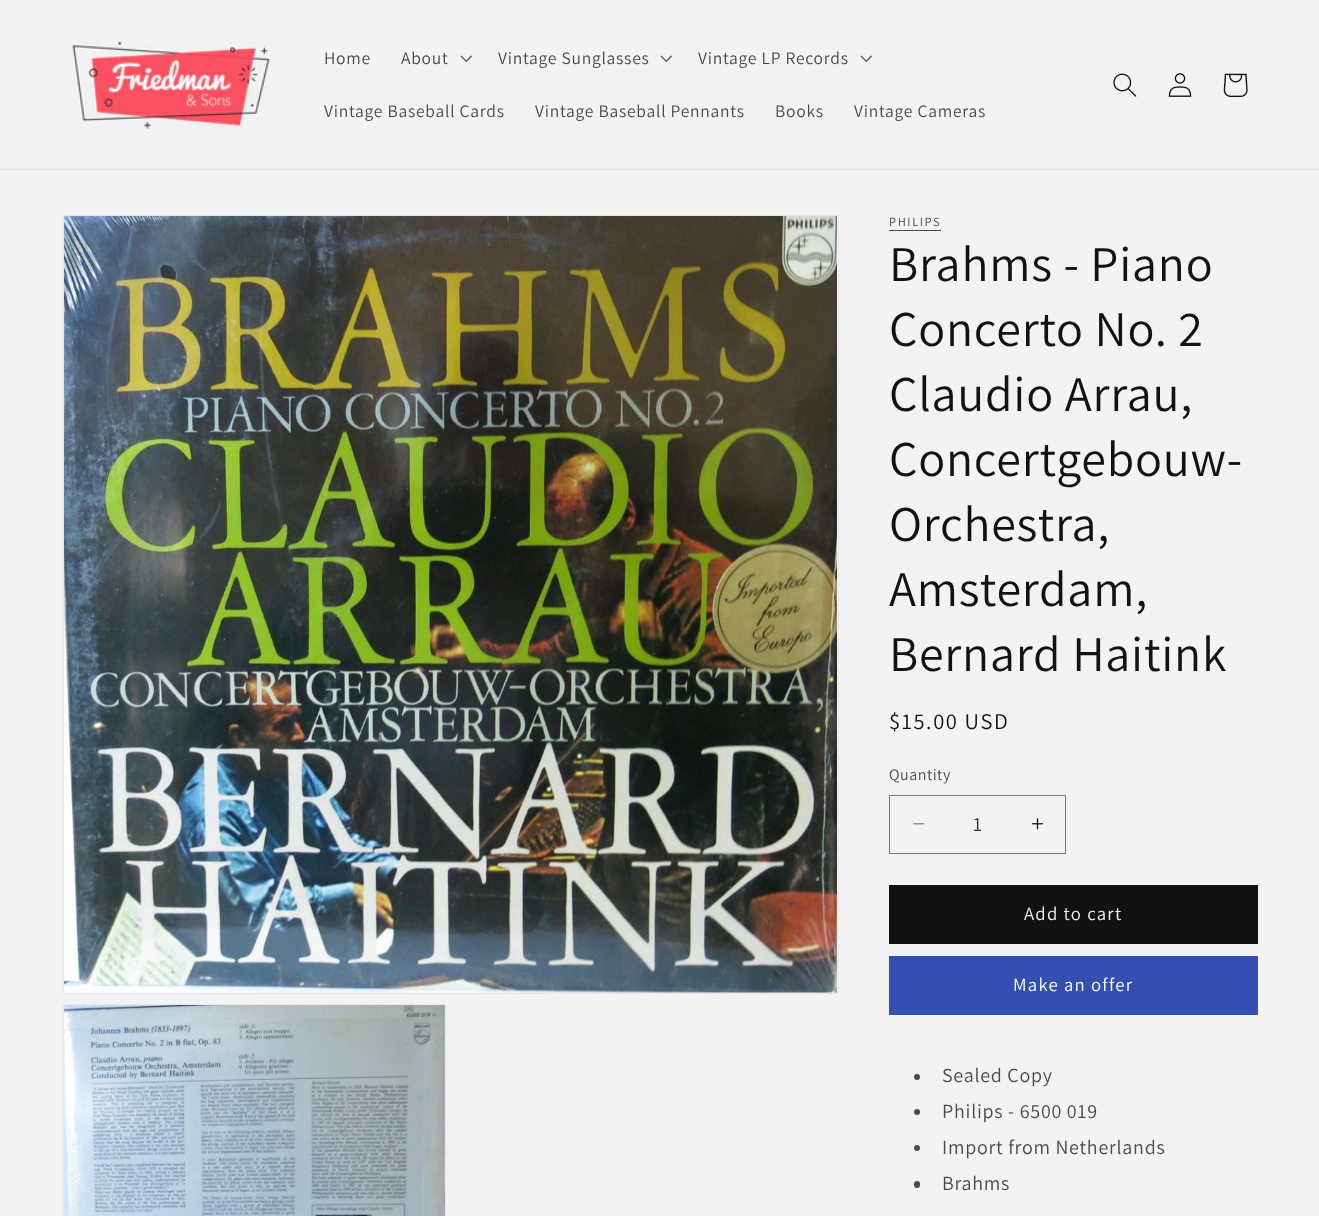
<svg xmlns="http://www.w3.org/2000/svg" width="1319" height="1216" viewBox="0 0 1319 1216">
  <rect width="100%" height="100%" fill="rgb(243,243,243)"/>
  <rect x="0" y="169" width="1319" height="1" fill="rgb(225,225,225)"/>
  <image x="71" y="41" width="200" height="88" href="pic1.png"/>
  <g font-family="Assistant" font-size="17.5" letter-spacing="0.75" fill="rgb(74,74,74)">
    <text x="324" y="64">Home</text>
    <text x="401" y="64">About</text>
  </g>
  <image x="460" y="55" width="12" height="7" href="pic2.png"/>
  <text x="498" y="64" font-family="Assistant" font-size="17.5" letter-spacing="0.75" fill="rgb(74,74,74)">Vintage Sunglasses</text>
  <image x="660" y="55" width="12" height="7" href="pic2.png"/>
  <text x="698" y="64" font-family="Assistant" font-size="17.5" letter-spacing="0.75" fill="rgb(74,74,74)">Vintage LP Records</text>
  <image x="860" y="55" width="12" height="7" href="pic2.png"/>
  <g font-family="Assistant" font-size="17.5" letter-spacing="0.75" fill="rgb(74,74,74)">
    <text x="324" y="117">Vintage Baseball Cards</text>
    <text x="535" y="117">Vintage Baseball Pennants</text>
    <text x="775" y="117">Books</text>
    <text x="854" y="117">Vintage Cameras</text>
  </g>
  <image x="1113" y="73" width="24" height="24" href="pic3.png"/>
  <image x="1168" y="73" width="24" height="24" href="pic4.png"/>
  <image x="1223" y="73" width="25" height="24" href="pic5.png"/>
  <rect x="63.5" y="215.5" width="775" height="778" fill="none" stroke="rgb(232,232,232)"/>
  <image x="64" y="216" width="773" height="777" href="pic6.png"/>
  <rect x="63.5" y="1004.5" width="382" height="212" fill="none" stroke="rgb(232,232,232)"/>
  <image x="64" y="1005" width="381" height="211" href="pic7.png"/>
  <text x="889" y="226" font-family="Assistant" font-size="12.5" letter-spacing="1.6" fill="rgb(74,74,74)">PHILIPS</text>
  <rect x="889" y="230" width="52" height="1" fill="rgb(74,74,74)"/>
  <g font-family="Assistant" font-size="50" letter-spacing="0.75" fill="rgb(18,18,18)">
    <text>
      <tspan x="889" y="281">Brahms - Piano</tspan>
      <tspan x="889" y="346">Concerto No. 2</tspan>
      <tspan x="889" y="411">Claudio Arrau,</tspan>
      <tspan x="889" y="476">Concertgebouw-</tspan>
      <tspan x="889" y="541">Orchestra,</tspan>
      <tspan x="889" y="606">Amsterdam,</tspan>
      <tspan x="889" y="671">Bernard Haitink</tspan>
    </text>
  </g>
  <text x="889" y="729" font-family="Assistant" font-size="22.5" letter-spacing="1.6" fill="rgb(18,18,18)">$15.00 USD</text>
  <text x="889" y="780" font-family="Assistant" font-size="16" letter-spacing="0.5" fill="rgb(74,74,74)">Quantity</text>
  <image x="913" y="823" width="12" height="2" href="pic8.png"/>
  <image x="1031" y="818" width="13" height="12" href="pic9.png"/>
  <rect x="889.5" y="795.5" width="176" height="58" fill="none" stroke="rgb(119,119,119)"/>
  <text x="973" y="831" font-family="Assistant" font-size="20" fill="rgb(52,52,52)">1</text>
  <rect x="889" y="885" width="369" height="59" fill="rgb(18,18,18)"/>
  <text x="1024" y="920" font-family="Assistant" font-size="18.75" letter-spacing="1.25" fill="rgb(243,243,243)">Add to cart</text>
  <rect x="889" y="956" width="369" height="59" fill="rgb(51,79,180)"/>
  <text x="1013" y="991" font-family="Assistant" font-size="18.75" letter-spacing="1.25" fill="rgb(255,255,255)">Make an offer</text>
  <circle cx="917" cy="1077" r="3" fill="rgb(74,74,74)"/>
  <text x="942" y="1082" font-family="Assistant" font-size="20" letter-spacing="0.75" fill="rgb(74,74,74)">Sealed Copy</text>
  <circle cx="917" cy="1112" r="3" fill="rgb(74,74,74)"/>
  <text x="942" y="1118" font-family="Assistant" font-size="20" letter-spacing="0.75" fill="rgb(74,74,74)">Philips - 6500 019</text>
  <circle cx="917" cy="1148" r="3" fill="rgb(74,74,74)"/>
  <text x="942" y="1154" font-family="Assistant" font-size="20" letter-spacing="0.75" fill="rgb(74,74,74)">Import from Netherlands</text>
  <rect x="914" y="1181" width="6" height="7" rx="3" fill="rgb(74,74,74)"/>
  <text x="942" y="1190" font-family="Assistant" font-size="20" letter-spacing="0.75" fill="rgb(74,74,74)">Brahms</text>
</svg>
